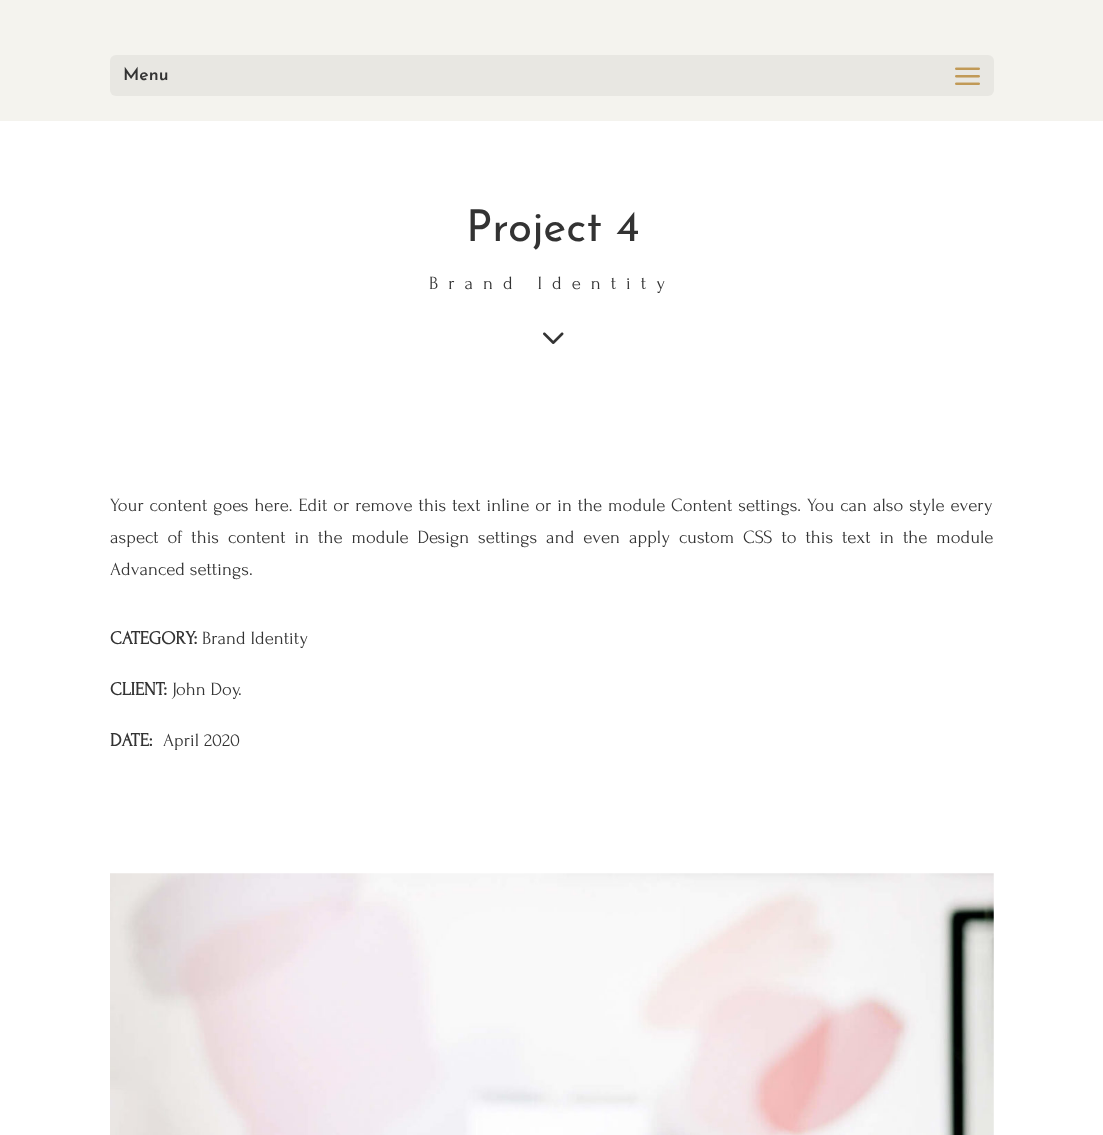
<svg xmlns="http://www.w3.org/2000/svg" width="1103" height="1135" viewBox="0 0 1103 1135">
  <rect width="100%" height="100%" fill="rgb(255,255,255)"/>
  <rect x="0" y="0" width="1103" height="121" fill="rgb(244,243,238)"/>
  <rect x="110" y="55" width="884" height="41" rx="6" fill="rgb(232,231,226)"/>
  <text x="123" y="80" font-family="Josefin Sans" font-size="17.5" font-weight="600" fill="rgb(51,51,51)">Menu</text>
  <image x="955" y="67" width="25" height="18" href="pic1.png"/>
  <text x="466" y="241" font-family="Josefin Sans" font-size="44" fill="rgb(51,51,51)">Project 4</text>
  <text x="429" y="289" font-family="Forum" font-size="18.75" letter-spacing="10" fill="rgb(51,51,51)">Brand Identity</text>
  <image x="543" y="332" width="21" height="12" href="pic2.png"/>
  <g font-family="Forum" font-size="18.75" fill="rgb(51,51,51)">
    <text>
      <tspan x="110" y="511" word-spacing="1">Your content goes here. Edit or remove this text inline or in the module Content settings. You can also style every</tspan>
      <tspan x="110" y="543" word-spacing="4">aspect of this content in the module Design settings and even apply custom CSS to this text in the module</tspan>
      <tspan x="110" y="575">Advanced settings.</tspan>
    </text>
  </g>
  <text x="110" y="644" font-family="Forum" font-size="18.75" font-weight="bold" fill="rgb(51,51,51)">CATEGORY:</text>
  <text x="202" y="644" font-family="Forum" font-size="18.75" fill="rgb(51,51,51)">Brand Identity</text>
  <text x="110" y="695" font-family="Forum" font-size="18.75" font-weight="bold" fill="rgb(51,51,51)">CLIENT:</text>
  <text x="172" y="695" font-family="Forum" font-size="18.75" fill="rgb(51,51,51)">John Doy.</text>
  <text x="110" y="746" font-family="Forum" font-size="18.75" font-weight="bold" fill="rgb(51,51,51)">DATE:</text>
  <text x="163" y="746" font-family="Forum" font-size="18.75" fill="rgb(51,51,51)">April 2020</text>
  <image x="110" y="873" width="884" height="262" href="pic3.png"/>
</svg>
